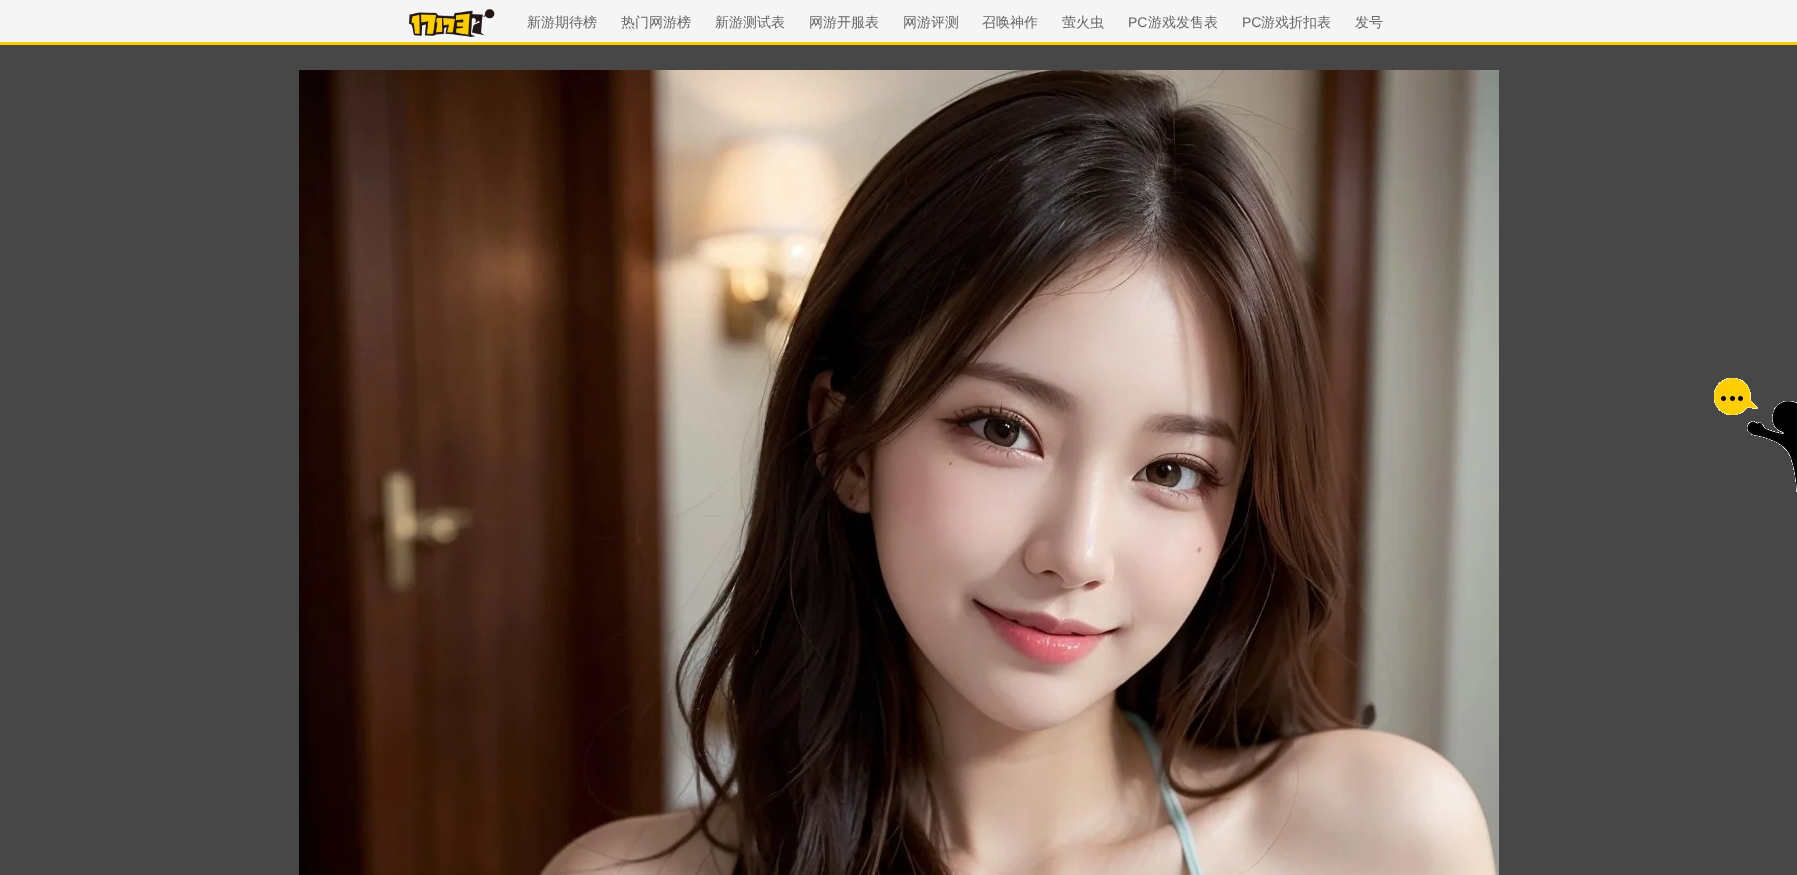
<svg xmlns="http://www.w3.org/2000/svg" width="1797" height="875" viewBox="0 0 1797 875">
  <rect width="100%" height="100%" fill="rgb(71,71,71)"/>
  <rect x="0" y="0" width="1797" height="42" fill="rgb(245,245,245)"/>
  <rect x="0" y="42" width="1797" height="3" fill="rgb(255,205,0)"/>
  <image x="409" y="9" width="86" height="28" href="pic1.png"/>
  <g font-family="WenQuanYi Zen Hei" font-size="14" font-weight="500" fill="rgb(102,102,102)">
    <text x="527" y="27">新游期待榜</text>
    <text x="621" y="27">热门网游榜</text>
    <text x="715" y="27">新游测试表</text>
    <text x="809" y="27">网游开服表</text>
    <text x="903" y="27">网游评测</text>
    <text x="982" y="27">召唤神作</text>
    <text x="1062" y="27">萤火虫</text>
  </g>
  <text x="1128" y="27" font-family="Liberation Sans" font-size="14" fill="rgb(102,102,102)">PC</text>
  <text x="1148" y="27" font-family="WenQuanYi Zen Hei" font-size="14" font-weight="500" fill="rgb(102,102,102)">游戏发售表</text>
  <text x="1242" y="27" font-family="Liberation Sans" font-size="14" fill="rgb(102,102,102)">PC</text>
  <g font-family="WenQuanYi Zen Hei" font-size="14" font-weight="500" fill="rgb(102,102,102)">
    <text x="1261" y="27">游戏折扣表</text>
    <text x="1355" y="27">发号</text>
  </g>
  <image x="299" y="70" width="1200" height="805" href="pic2.png"/>
  <image x="1714" y="378" width="83" height="114" href="pic3.png"/>
</svg>
